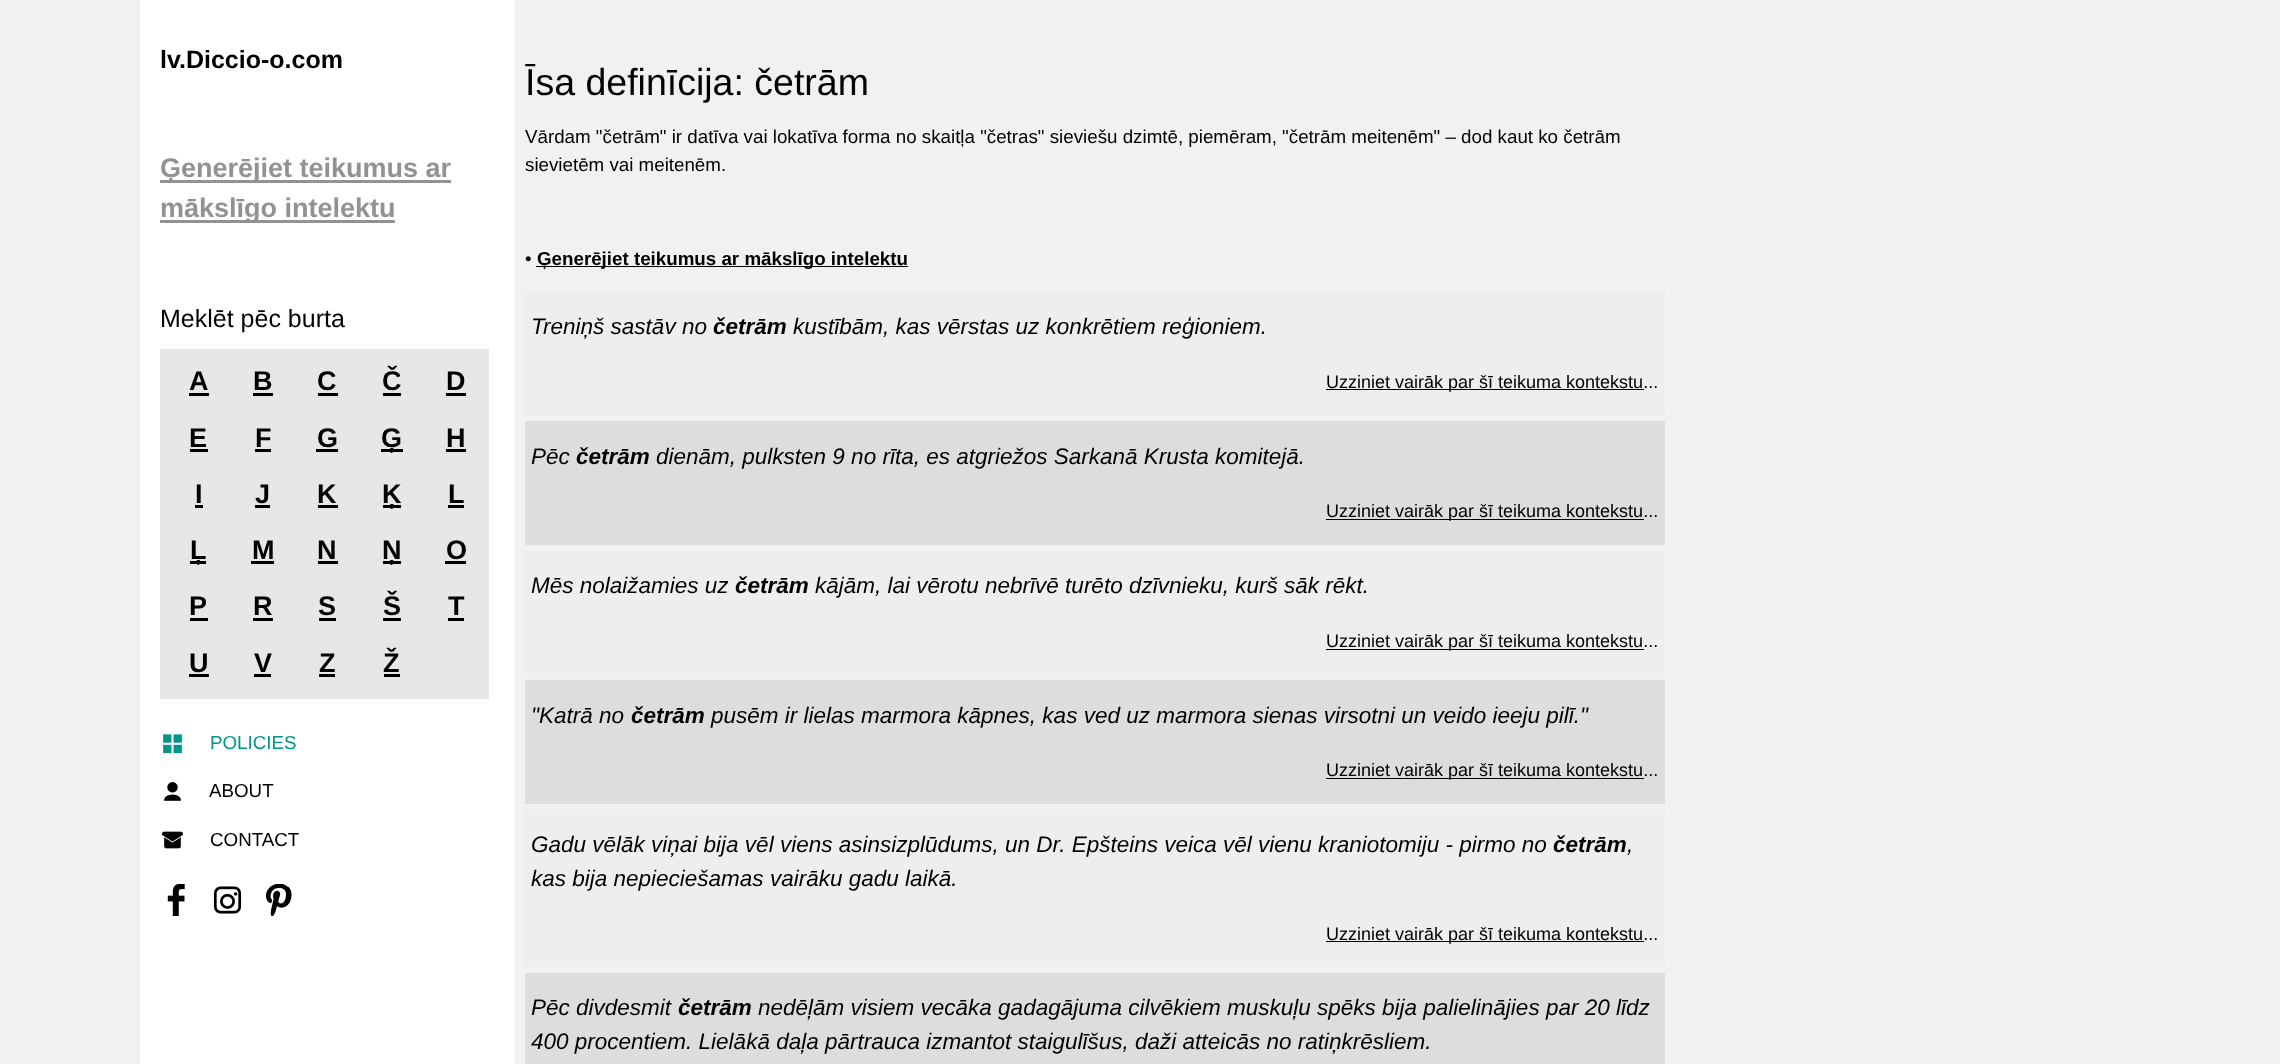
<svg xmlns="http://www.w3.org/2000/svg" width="2280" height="1064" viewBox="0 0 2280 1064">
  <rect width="100%" height="100%" fill="rgb(241,241,241)"/>
  <rect x="140" y="0" width="375" height="1064" fill="rgb(255,255,255)"/>
  <text x="160" y="68" font-family="Liberation Sans" font-size="25" font-weight="bold" fill="rgb(0,0,0)">lv.Diccio-o.com</text>
  <rect x="160" y="180" width="291" height="3" fill="rgb(146,146,146)"/>
  <text x="160" y="177" font-family="Liberation Sans" font-size="27" font-weight="bold" fill="rgb(146,146,146)">Ģenerējiet teikumus ar</text>
  <rect x="160" y="220" width="235" height="3" fill="rgb(146,146,146)"/>
  <text x="160" y="217" font-family="Liberation Sans" font-size="27" font-weight="bold" fill="rgb(146,146,146)">mākslīgo intelektu</text>
  <text x="160" y="327" font-family="Liberation Sans" font-size="25" fill="rgb(0,0,0)">Meklēt pēc burta</text>
  <rect x="160" y="349" width="329" height="350" fill="rgb(231,231,231)"/>
  <text x="189" y="390" font-family="Liberation Sans" font-size="27" font-weight="bold" fill="rgb(0,0,0)">A</text>
  <rect x="189" y="393" width="20" height="3" fill="rgb(0,0,0)"/>
  <text x="253" y="390" font-family="Liberation Sans" font-size="27" font-weight="bold" fill="rgb(0,0,0)">B</text>
  <rect x="253" y="393" width="20" height="3" fill="rgb(0,0,0)"/>
  <text x="317" y="390" font-family="Liberation Sans" font-size="27" font-weight="bold" fill="rgb(0,0,0)">C</text>
  <rect x="318" y="393" width="20" height="3" fill="rgb(0,0,0)"/>
  <text x="382" y="390" font-family="Liberation Sans" font-size="27" font-weight="bold" fill="rgb(0,0,0)">Č</text>
  <rect x="383" y="393" width="18" height="3" fill="rgb(0,0,0)"/>
  <text x="446" y="390" font-family="Liberation Sans" font-size="27" font-weight="bold" fill="rgb(0,0,0)">D</text>
  <rect x="446" y="393" width="20" height="3" fill="rgb(0,0,0)"/>
  <text x="189" y="447" font-family="Liberation Sans" font-size="27" font-weight="bold" fill="rgb(0,0,0)">E</text>
  <rect x="190" y="449" width="18" height="3" fill="rgb(0,0,0)"/>
  <text x="255" y="447" font-family="Liberation Sans" font-size="27" font-weight="bold" fill="rgb(0,0,0)">F</text>
  <rect x="255" y="449" width="16" height="3" fill="rgb(0,0,0)"/>
  <text x="317" y="447" font-family="Liberation Sans" font-size="27" font-weight="bold" fill="rgb(0,0,0)">G</text>
  <rect x="316" y="449" width="22" height="3" fill="rgb(0,0,0)"/>
  <rect x="381" y="449" width="22" height="3" fill="rgb(0,0,0)"/>
  <g font-family="Liberation Sans" font-size="27" font-weight="bold" fill="rgb(0,0,0)">
    <text x="381" y="447">Ģ</text>
    <text x="446" y="447">H</text>
  </g>
  <rect x="446" y="449" width="20" height="3" fill="rgb(0,0,0)"/>
  <text x="195" y="503" font-family="Liberation Sans" font-size="27" font-weight="bold" fill="rgb(0,0,0)">I</text>
  <rect x="195" y="505" width="8" height="3" fill="rgb(0,0,0)"/>
  <text x="255" y="503" font-family="Liberation Sans" font-size="27" font-weight="bold" fill="rgb(0,0,0)">J</text>
  <rect x="255" y="505" width="15" height="3" fill="rgb(0,0,0)"/>
  <text x="317" y="503" font-family="Liberation Sans" font-size="27" font-weight="bold" fill="rgb(0,0,0)">K</text>
  <rect x="318" y="505" width="20" height="3" fill="rgb(0,0,0)"/>
  <rect x="383" y="505" width="18" height="3" fill="rgb(0,0,0)"/>
  <g font-family="Liberation Sans" font-size="27" font-weight="bold" fill="rgb(0,0,0)">
    <text x="382" y="503">Ķ</text>
    <text x="448" y="503">L</text>
  </g>
  <rect x="448" y="505" width="16" height="3" fill="rgb(0,0,0)"/>
  <rect x="190" y="561" width="16" height="3" fill="rgb(0,0,0)"/>
  <g font-family="Liberation Sans" font-size="27" font-weight="bold" fill="rgb(0,0,0)">
    <text x="190" y="559">Ļ</text>
    <text x="252" y="559">M</text>
  </g>
  <rect x="251" y="561" width="23" height="3" fill="rgb(0,0,0)"/>
  <text x="317" y="559" font-family="Liberation Sans" font-size="27" font-weight="bold" fill="rgb(0,0,0)">N</text>
  <rect x="318" y="561" width="20" height="3" fill="rgb(0,0,0)"/>
  <rect x="383" y="561" width="18" height="3" fill="rgb(0,0,0)"/>
  <g font-family="Liberation Sans" font-size="27" font-weight="bold" fill="rgb(0,0,0)">
    <text x="382" y="559">Ņ</text>
    <text x="446" y="559">O</text>
  </g>
  <rect x="445" y="561" width="21" height="3" fill="rgb(0,0,0)"/>
  <text x="189" y="615" font-family="Liberation Sans" font-size="27" font-weight="bold" fill="rgb(0,0,0)">P</text>
  <rect x="190" y="618" width="18" height="3" fill="rgb(0,0,0)"/>
  <text x="253" y="615" font-family="Liberation Sans" font-size="27" font-weight="bold" fill="rgb(0,0,0)">R</text>
  <rect x="253" y="618" width="20" height="3" fill="rgb(0,0,0)"/>
  <text x="318" y="615" font-family="Liberation Sans" font-size="27" font-weight="bold" fill="rgb(0,0,0)">S</text>
  <rect x="319" y="618" width="17" height="3" fill="rgb(0,0,0)"/>
  <text x="383" y="615" font-family="Liberation Sans" font-size="27" font-weight="bold" fill="rgb(0,0,0)">Š</text>
  <rect x="383" y="618" width="18" height="3" fill="rgb(0,0,0)"/>
  <text x="448" y="615" font-family="Liberation Sans" font-size="27" font-weight="bold" fill="rgb(0,0,0)">T</text>
  <rect x="448" y="618" width="16" height="3" fill="rgb(0,0,0)"/>
  <text x="189" y="672" font-family="Liberation Sans" font-size="27" font-weight="bold" fill="rgb(0,0,0)">U</text>
  <rect x="189" y="674" width="20" height="3" fill="rgb(0,0,0)"/>
  <text x="254" y="672" font-family="Liberation Sans" font-size="27" font-weight="bold" fill="rgb(0,0,0)">V</text>
  <rect x="254" y="674" width="17" height="3" fill="rgb(0,0,0)"/>
  <text x="319" y="672" font-family="Liberation Sans" font-size="27" font-weight="bold" fill="rgb(0,0,0)">Z</text>
  <rect x="319" y="674" width="16" height="3" fill="rgb(0,0,0)"/>
  <text x="383" y="672" font-family="Liberation Sans" font-size="27" font-weight="bold" fill="rgb(0,0,0)">Ž</text>
  <rect x="384" y="674" width="16" height="3" fill="rgb(0,0,0)"/>
  <image x="163" y="734" width="19" height="20" href="pic1.png"/>
  <text x="210" y="749" font-family="Liberation Sans" font-size="18.75" fill="rgb(0,150,136)">POLICIES</text>
  <image x="164" y="782" width="17" height="19" href="pic2.png"/>
  <text x="209" y="797" font-family="Liberation Sans" font-size="18.75" fill="rgb(0,0,0)">ABOUT</text>
  <image x="162" y="831" width="21" height="18" href="pic3.png"/>
  <text x="210" y="846" font-family="Liberation Sans" font-size="18.75" fill="rgb(0,0,0)">CONTACT</text>
  <image x="167" y="884" width="18" height="32" href="pic4.png"/>
  <image x="213" y="886" width="29" height="28" href="pic5.png"/>
  <image x="266" y="884" width="26" height="32" href="pic6.png"/>
  <text x="525" y="95" font-family="Liberation Sans" font-size="37.5" fill="rgb(0,0,0)">Īsa definīcija: četrām</text>
  <g font-family="Liberation Sans" font-size="18.75" fill="rgb(0,0,0)">
    <text>
      <tspan x="525" y="143">Vārdam "četrām" ir datīva vai lokatīva forma no skaitļa "četras" sieviešu dzimtē, piemēram, "četrām meitenēm" – dod kaut ko četrām</tspan>
      <tspan x="525" y="171">sievietēm vai meitenēm.</tspan>
    </text>
    <text x="525" y="265">•</text>
  </g>
  <rect x="536" y="266" width="372" height="1" fill="rgb(0,0,0)"/>
  <text x="537" y="265" font-family="Liberation Sans" font-size="18.75" font-weight="bold" fill="rgb(0,0,0)">Ģenerējiet teikumus ar mākslīgo intelektu</text>
  <rect x="525" y="291" width="1140" height="124" fill="rgb(238,238,238)"/>
  <text x="531" y="334" font-family="Liberation Sans" font-size="22.5" font-style="italic" fill="rgb(0,0,0)">Treniņš sastāv no</text>
  <text x="713" y="334" font-family="Liberation Sans" font-size="22.5" font-weight="bold" font-style="italic" fill="rgb(0,0,0)">četrām</text>
  <text x="793" y="334" font-family="Liberation Sans" font-size="22.5" font-style="italic" fill="rgb(0,0,0)">kustībām, kas vērstas uz konkrētiem reģioniem.</text>
  <rect x="1326" y="389" width="318" height="1" fill="rgb(0,0,0)"/>
  <text x="1326" y="388" font-family="Liberation Sans" font-size="18" fill="rgb(0,0,0)">Uzziniet vairāk par šī teikuma kontekstu...</text>
  <rect x="525" y="421" width="1140" height="124" fill="rgb(221,221,221)"/>
  <text x="531" y="464" font-family="Liberation Sans" font-size="22.5" font-style="italic" fill="rgb(0,0,0)">Pēc</text>
  <text x="576" y="464" font-family="Liberation Sans" font-size="22.5" font-weight="bold" font-style="italic" fill="rgb(0,0,0)">četrām</text>
  <text x="656" y="464" font-family="Liberation Sans" font-size="22.5" font-style="italic" fill="rgb(0,0,0)">dienām, pulksten 9 no rīta, es atgriežos Sarkanā Krusta komitejā.</text>
  <rect x="1326" y="519" width="318" height="1" fill="rgb(0,0,0)"/>
  <text x="1326" y="517" font-family="Liberation Sans" font-size="18" fill="rgb(0,0,0)">Uzziniet vairāk par šī teikuma kontekstu...</text>
  <rect x="525" y="551" width="1140" height="123" fill="rgb(238,238,238)"/>
  <text x="531" y="593" font-family="Liberation Sans" font-size="22.5" font-style="italic" fill="rgb(0,0,0)">Mēs nolaižamies uz</text>
  <text x="735" y="593" font-family="Liberation Sans" font-size="22.5" font-weight="bold" font-style="italic" fill="rgb(0,0,0)">četrām</text>
  <text x="815" y="593" font-family="Liberation Sans" font-size="22.5" font-style="italic" fill="rgb(0,0,0)">kājām, lai vērotu nebrīvē turēto dzīvnieku, kurš sāk rēkt.</text>
  <rect x="1326" y="649" width="318" height="1" fill="rgb(0,0,0)"/>
  <text x="1326" y="647" font-family="Liberation Sans" font-size="18" fill="rgb(0,0,0)">Uzziniet vairāk par šī teikuma kontekstu...</text>
  <rect x="525" y="680" width="1140" height="124" fill="rgb(221,221,221)"/>
  <text x="531" y="723" font-family="Liberation Sans" font-size="22.5" font-style="italic" fill="rgb(0,0,0)">"Katrā no</text>
  <text x="631" y="723" font-family="Liberation Sans" font-size="22.5" font-weight="bold" font-style="italic" fill="rgb(0,0,0)">četrām</text>
  <text x="711" y="723" font-family="Liberation Sans" font-size="22.5" font-style="italic" fill="rgb(0,0,0)">pusēm ir lielas marmora kāpnes, kas ved uz marmora sienas virsotni un veido ieeju pilī."</text>
  <rect x="1326" y="778" width="318" height="1" fill="rgb(0,0,0)"/>
  <text x="1326" y="776" font-family="Liberation Sans" font-size="18" fill="rgb(0,0,0)">Uzziniet vairāk par šī teikuma kontekstu...</text>
  <rect x="525" y="810" width="1140" height="156" fill="rgb(238,238,238)"/>
  <text x="531" y="852" font-family="Liberation Sans" font-size="22.5" font-style="italic" fill="rgb(0,0,0)">Gadu vēlāk viņai bija vēl viens asinsizplūdums, un Dr. Epšteins veica vēl vienu kraniotomiju - pirmo no</text>
  <text x="1553" y="852" font-family="Liberation Sans" font-size="22.5" font-weight="bold" font-style="italic" fill="rgb(0,0,0)">četrām</text>
  <g font-family="Liberation Sans" font-size="22.5" font-style="italic" fill="rgb(0,0,0)">
    <text x="1627" y="852">,</text>
    <text x="531" y="886">kas bija nepieciešamas vairāku gadu laikā.</text>
  </g>
  <rect x="1326" y="941" width="318" height="1" fill="rgb(0,0,0)"/>
  <text x="1326" y="940" font-family="Liberation Sans" font-size="18" fill="rgb(0,0,0)">Uzziniet vairāk par šī teikuma kontekstu...</text>
  <rect x="525" y="973" width="1140" height="91" fill="rgb(221,221,221)"/>
  <text x="531" y="1015" font-family="Liberation Sans" font-size="22.5" font-style="italic" fill="rgb(0,0,0)">Pēc divdesmit</text>
  <text x="678" y="1015" font-family="Liberation Sans" font-size="22.5" font-weight="bold" font-style="italic" fill="rgb(0,0,0)">četrām</text>
  <g font-family="Liberation Sans" font-size="22.5" font-style="italic" fill="rgb(0,0,0)">
    <text x="758" y="1015">nedēļām visiem vecāka gadagājuma cilvēkiem muskuļu spēks bija palielinājies par 20 līdz</text>
    <text x="531" y="1049">400 procentiem. Lielākā daļa pārtrauca izmantot staigulīšus, daži atteicās no ratiņkrēsliem.</text>
  </g>
</svg>
